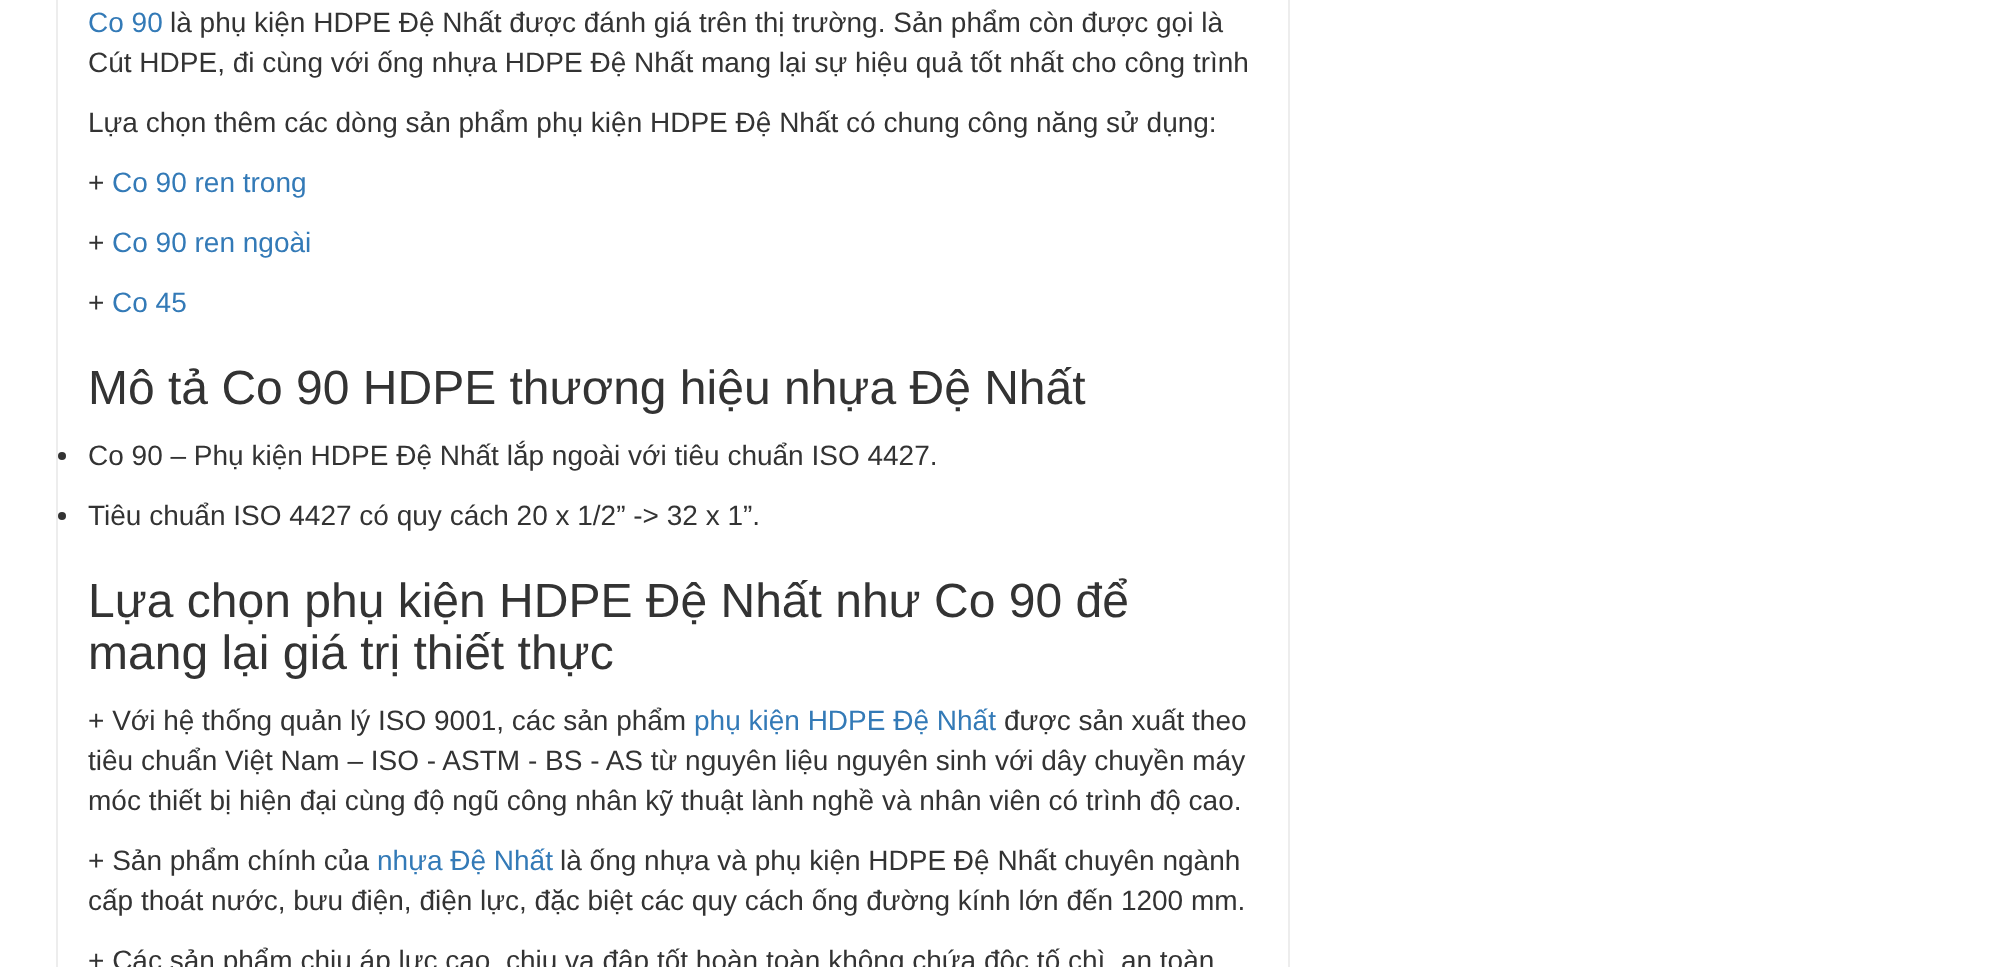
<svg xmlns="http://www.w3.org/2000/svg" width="1991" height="967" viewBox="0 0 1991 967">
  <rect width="100%" height="100%" fill="rgb(255,255,255)"/>
  <rect x="1288" y="0" width="2" height="967" fill="rgb(237,237,237)"/>
  <rect x="56" y="0" width="2" height="967" fill="rgb(237,237,237)"/>
  <text x="88" y="32" font-family="Liberation Sans" font-size="28" fill="rgb(51,122,183)">Co 90</text>
  <g font-family="Liberation Sans" font-size="28" fill="rgb(51,51,51)">
    <text x="170" y="32">là phụ kiện HDPE Đệ Nhất được đánh giá trên thị trường. Sản phẩm còn được gọi là</text>
    <text x="88" y="72">Cút HDPE, đi cùng với ống nhựa HDPE Đệ Nhất mang lại sự hiệu quả tốt nhất cho công trình</text>
    <text x="88" y="132">Lựa chọn thêm các dòng sản phẩm phụ kiện HDPE Đệ Nhất có chung công năng sử dụng:</text>
    <text x="88" y="192">+</text>
  </g>
  <text x="112" y="192" font-family="Liberation Sans" font-size="28" fill="rgb(51,122,183)">Co 90 ren trong</text>
  <text x="88" y="252" font-family="Liberation Sans" font-size="28" fill="rgb(51,51,51)">+</text>
  <text x="112" y="252" font-family="Liberation Sans" font-size="28" fill="rgb(51,122,183)">Co 90 ren ngoài</text>
  <text x="88" y="312" font-family="Liberation Sans" font-size="28" fill="rgb(51,51,51)">+</text>
  <text x="112" y="312" font-family="Liberation Sans" font-size="28" fill="rgb(51,122,183)">Co 45</text>
  <text x="88" y="404" font-family="Liberation Sans" font-size="48" fill="rgb(51,51,51)">Mô tả Co 90 HDPE thương hiệu nhựa Đệ Nhất</text>
  <circle cx="62" cy="456" r="4" fill="rgb(51,51,51)"/>
  <text x="88" y="465" font-family="Liberation Sans" font-size="28" fill="rgb(51,51,51)">Co 90 – Phụ kiện HDPE Đệ Nhất lắp ngoài với tiêu chuẩn ISO 4427.</text>
  <circle cx="62" cy="516" r="4" fill="rgb(51,51,51)"/>
  <text x="88" y="525" font-family="Liberation Sans" font-size="28" fill="rgb(51,51,51)">Tiêu chuẩn ISO 4427 có quy cách 20 x 1/2” -&gt; 32 x 1”.</text>
  <g font-family="Liberation Sans" font-size="48" fill="rgb(51,51,51)">
    <text>
      <tspan x="88" y="617">Lựa chọn phụ kiện HDPE Đệ Nhất như Co 90 để</tspan>
      <tspan x="88" y="669">mang lại giá trị thiết thực</tspan>
    </text>
  </g>
  <text x="88" y="730" font-family="Liberation Sans" font-size="28" fill="rgb(51,51,51)">+ Với hệ thống quản lý ISO 9001, các sản phẩm</text>
  <text x="694" y="730" font-family="Liberation Sans" font-size="28" fill="rgb(51,122,183)">phụ kiện HDPE Đệ Nhất</text>
  <g font-family="Liberation Sans" font-size="28" fill="rgb(51,51,51)">
    <text x="1004" y="730">được sản xuất theo</text>
    <text>
      <tspan x="88" y="770">tiêu chuẩn Việt Nam – ISO - ASTM - BS - AS từ nguyên liệu nguyên sinh với dây chuyền máy</tspan>
      <tspan x="88" y="810">móc thiết bị hiện đại cùng độ ngũ công nhân kỹ thuật lành nghề và nhân viên có trình độ cao.</tspan>
    </text>
    <text x="88" y="870">+ Sản phẩm chính của</text>
  </g>
  <text x="377" y="870" font-family="Liberation Sans" font-size="28" fill="rgb(51,122,183)">nhựa Đệ Nhất</text>
  <g font-family="Liberation Sans" font-size="28" fill="rgb(51,51,51)">
    <text x="560" y="870">là ống nhựa và phụ kiện HDPE Đệ Nhất chuyên ngành</text>
    <text x="88" y="910">cấp thoát nước, bưu điện, điện lực, đặc biệt các quy cách ống đường kính lớn đến 1200 mm.</text>
    <text x="88" y="970">+ Các sản phẩm chịu áp lực cao, chịu va đập tốt hoàn toàn không chứa độc tố chì, an toàn</text>
  </g>
</svg>
